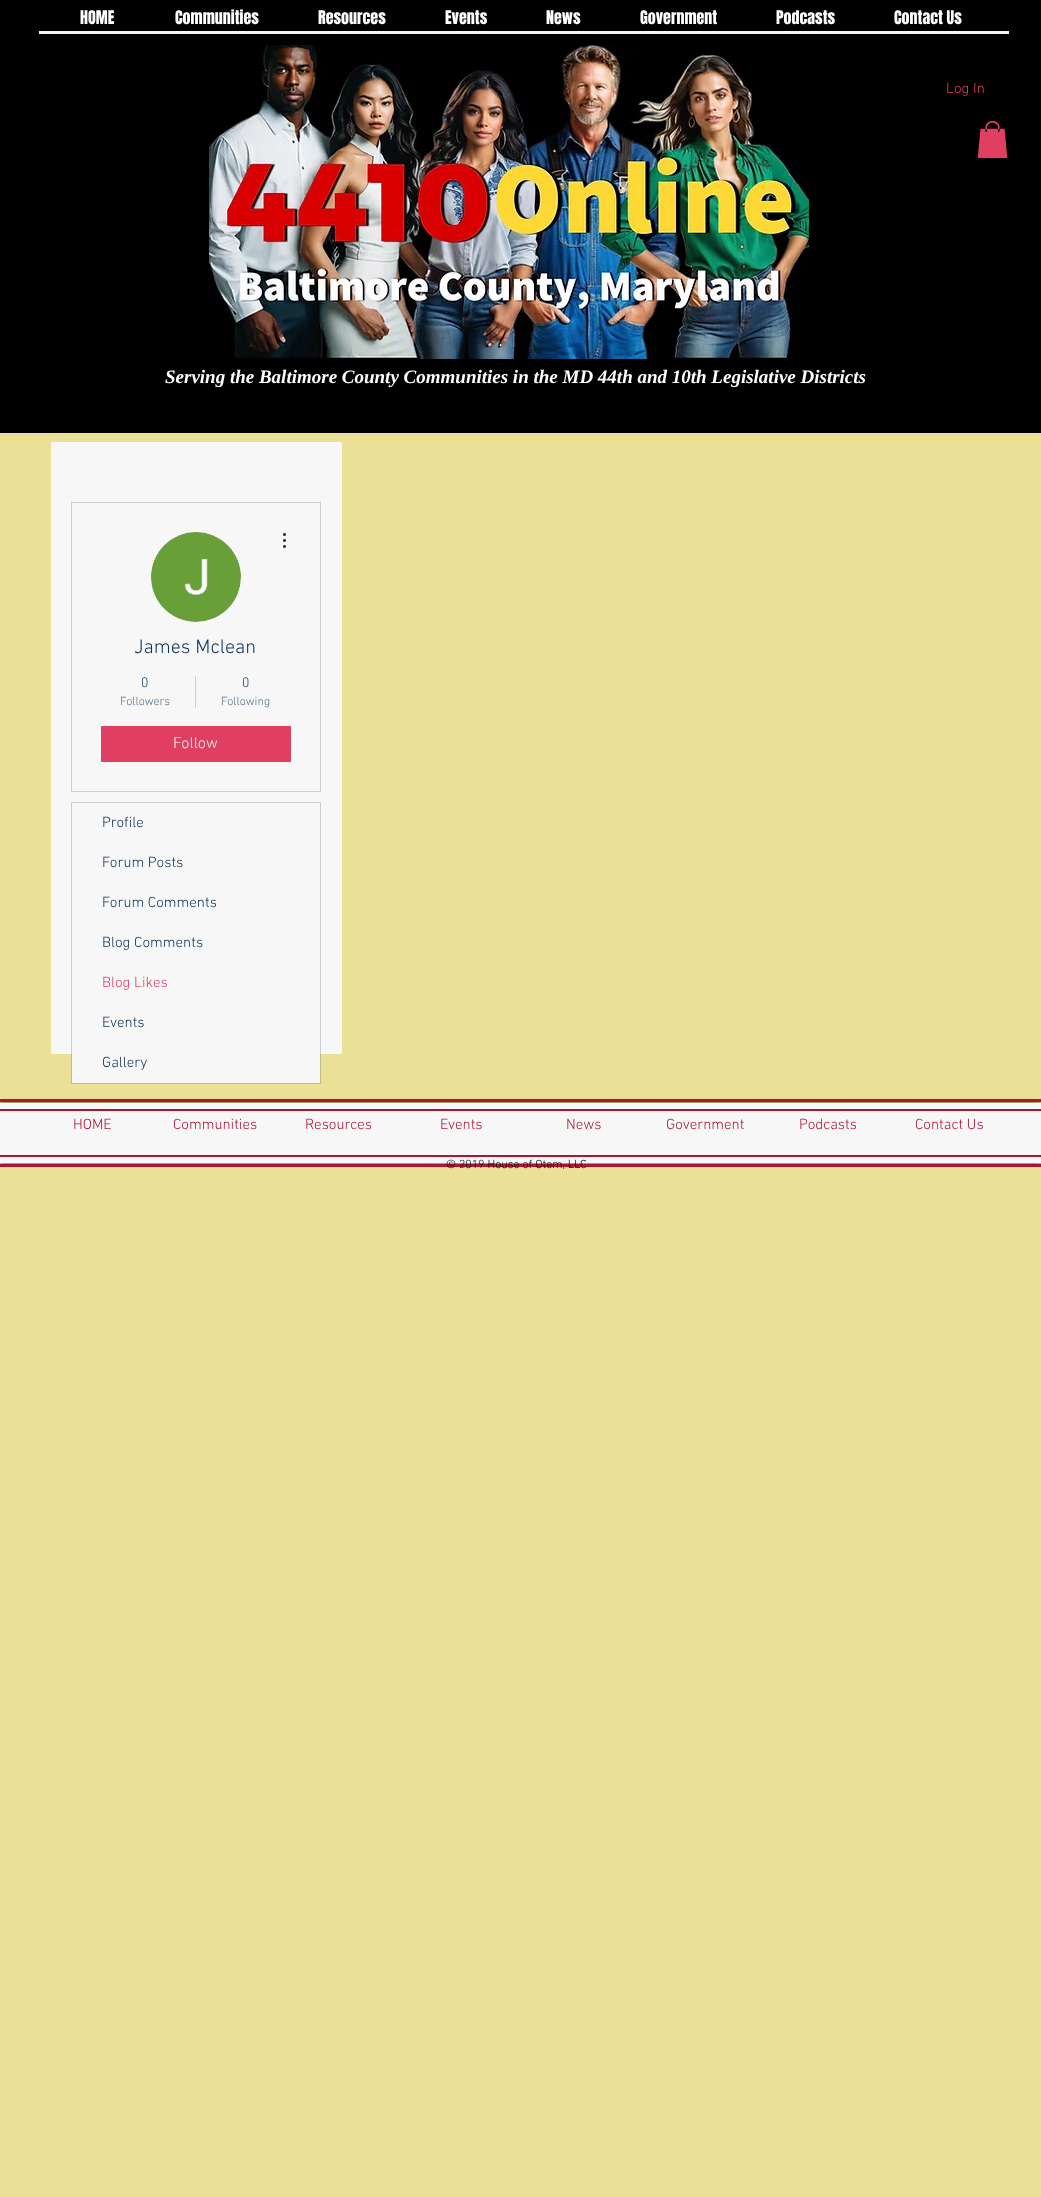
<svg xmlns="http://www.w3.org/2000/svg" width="1041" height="2197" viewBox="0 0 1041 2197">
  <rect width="100%" height="100%" fill="rgb(235,225,150)"/>
  <rect x="0" y="0" width="1041" height="433" fill="rgb(0,0,0)"/>
  <g font-family="Anton" font-size="16" fill="rgb(255,255,255)">
    <text x="80" y="24">HOME</text>
    <text x="175" y="24">Communities</text>
    <text x="318" y="24">Resources</text>
    <text x="445" y="24">Events</text>
    <text x="546" y="24">News</text>
    <text x="640" y="24">Government</text>
    <text x="776" y="24">Podcasts</text>
    <text x="894" y="24">Contact Us</text>
  </g>
  <rect x="39" y="31" width="970" height="3" fill="rgb(247,247,247)"/>
  <image x="209" y="45" width="600" height="314" href="pic1.png"/>
  <text x="946" y="93" font-family="'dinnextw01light'" font-size="15" font-weight="300" fill="rgb(224,63,98)">Log In</text>
  <image x="977" y="121" width="31" height="38" href="pic2.png"/>
  <text x="165" y="383" font-family="Liberation Serif" font-size="19" font-weight="bold" font-style="italic" fill="rgb(255,255,255)">Serving the Baltimore County Communities in the MD 44th and 10th Legislative Districts</text>
  <rect x="51" y="442" width="291" height="612" fill="rgb(247,247,247)"/>
  <rect x="71.5" y="502.5" width="249" height="289" fill="none" stroke="rgb(200,207,215)"/>
  <circle cx="196" cy="577" r="45" fill="rgb(216,216,216)"/>
  <image x="151" y="532" width="90" height="90" href="pic3.png"/>
  <image x="283" y="533" width="3" height="15" href="pic4.png"/>
  <text x="134" y="653" font-family="'dinnextw01light'" font-size="20" font-weight="300" fill="rgb(12,49,87)">James Mclean</text>
  <text x="141" y="687" font-family="'dinnextw01light'" font-size="14" font-weight="300" fill="rgb(12,49,87)">0</text>
  <text x="120" y="705" font-family="'dinnextw01light'" font-size="12" font-weight="300" fill="rgb(83,108,135)">Followers</text>
  <rect x="195" y="676" width="1" height="32" fill="rgb(200,207,215)"/>
  <text x="242" y="687" font-family="'dinnextw01light'" font-size="14" font-weight="300" fill="rgb(12,49,87)">0</text>
  <text x="221" y="705" font-family="'dinnextw01light'" font-size="12" font-weight="300" fill="rgb(83,108,135)">Following</text>
  <rect x="101" y="726" width="190" height="36" fill="rgb(224,63,98)"/>
  <text x="173" y="748" font-family="'dinnextw01light'" font-size="16" font-weight="300" fill="rgb(247,247,247)">Follow</text>
  <rect x="71.5" y="802.5" width="249" height="281" fill="none" stroke="rgba(12,49,87,0.2)"/>
  <g font-family="'dinnextw01light'" font-size="15" font-weight="300" fill="rgb(12,49,87)">
    <text x="102" y="827">Profile</text>
    <text x="102" y="867">Forum Posts</text>
    <text x="102" y="907">Forum Comments</text>
    <text x="102" y="947">Blog Comments</text>
  </g>
  <text x="102" y="987" font-family="'dinnextw01light'" font-size="15" font-weight="300" fill="rgb(224,63,98)">Blog Likes</text>
  <text x="102" y="1027" font-family="'dinnextw01light'" font-size="15" font-weight="300" fill="rgb(12,49,87)">Events</text>
  <rect x="72" y="1054" width="248" height="29" fill="rgb(247,247,247)"/>
  <text x="102" y="1067" font-family="'dinnextw01light'" font-size="15" font-weight="300" fill="rgb(12,49,87)">Gallery</text>
  <rect x="0" y="1103" width="1041" height="60" fill="rgba(0,0,0,0.7)" filter="blur(2.5px)"/>
  <rect x="0" y="1103" width="1041" height="60" fill="rgb(247,247,247)"/>
  <rect x="0" y="1099" width="1041" height="3" fill="rgb(170,23,52)"/>
  <rect x="0" y="1164" width="1041" height="3" fill="rgb(170,23,52)"/>
  <rect x="0" y="1109" width="1041" height="2" fill="rgb(170,23,52)"/>
  <rect x="0" y="1155" width="1041" height="2" fill="rgb(170,23,52)"/>
  <g font-family="'dinnextw01light'" font-size="15" font-weight="300" fill="rgb(170,23,52)">
    <text x="73" y="1129">HOME</text>
    <text x="173" y="1129">Communities</text>
    <text x="305" y="1129">Resources</text>
    <text x="440" y="1129">Events</text>
    <text x="566" y="1129">News</text>
    <text x="666" y="1129">Government</text>
    <text x="799" y="1129">Podcasts</text>
    <text x="915" y="1129">Contact Us</text>
  </g>
  <text x="446" y="1168" font-family="'dinnextw01light'" font-size="12" font-weight="300" fill="rgb(0,0,0)">© 2019 House of Otem, LLC</text>
</svg>
